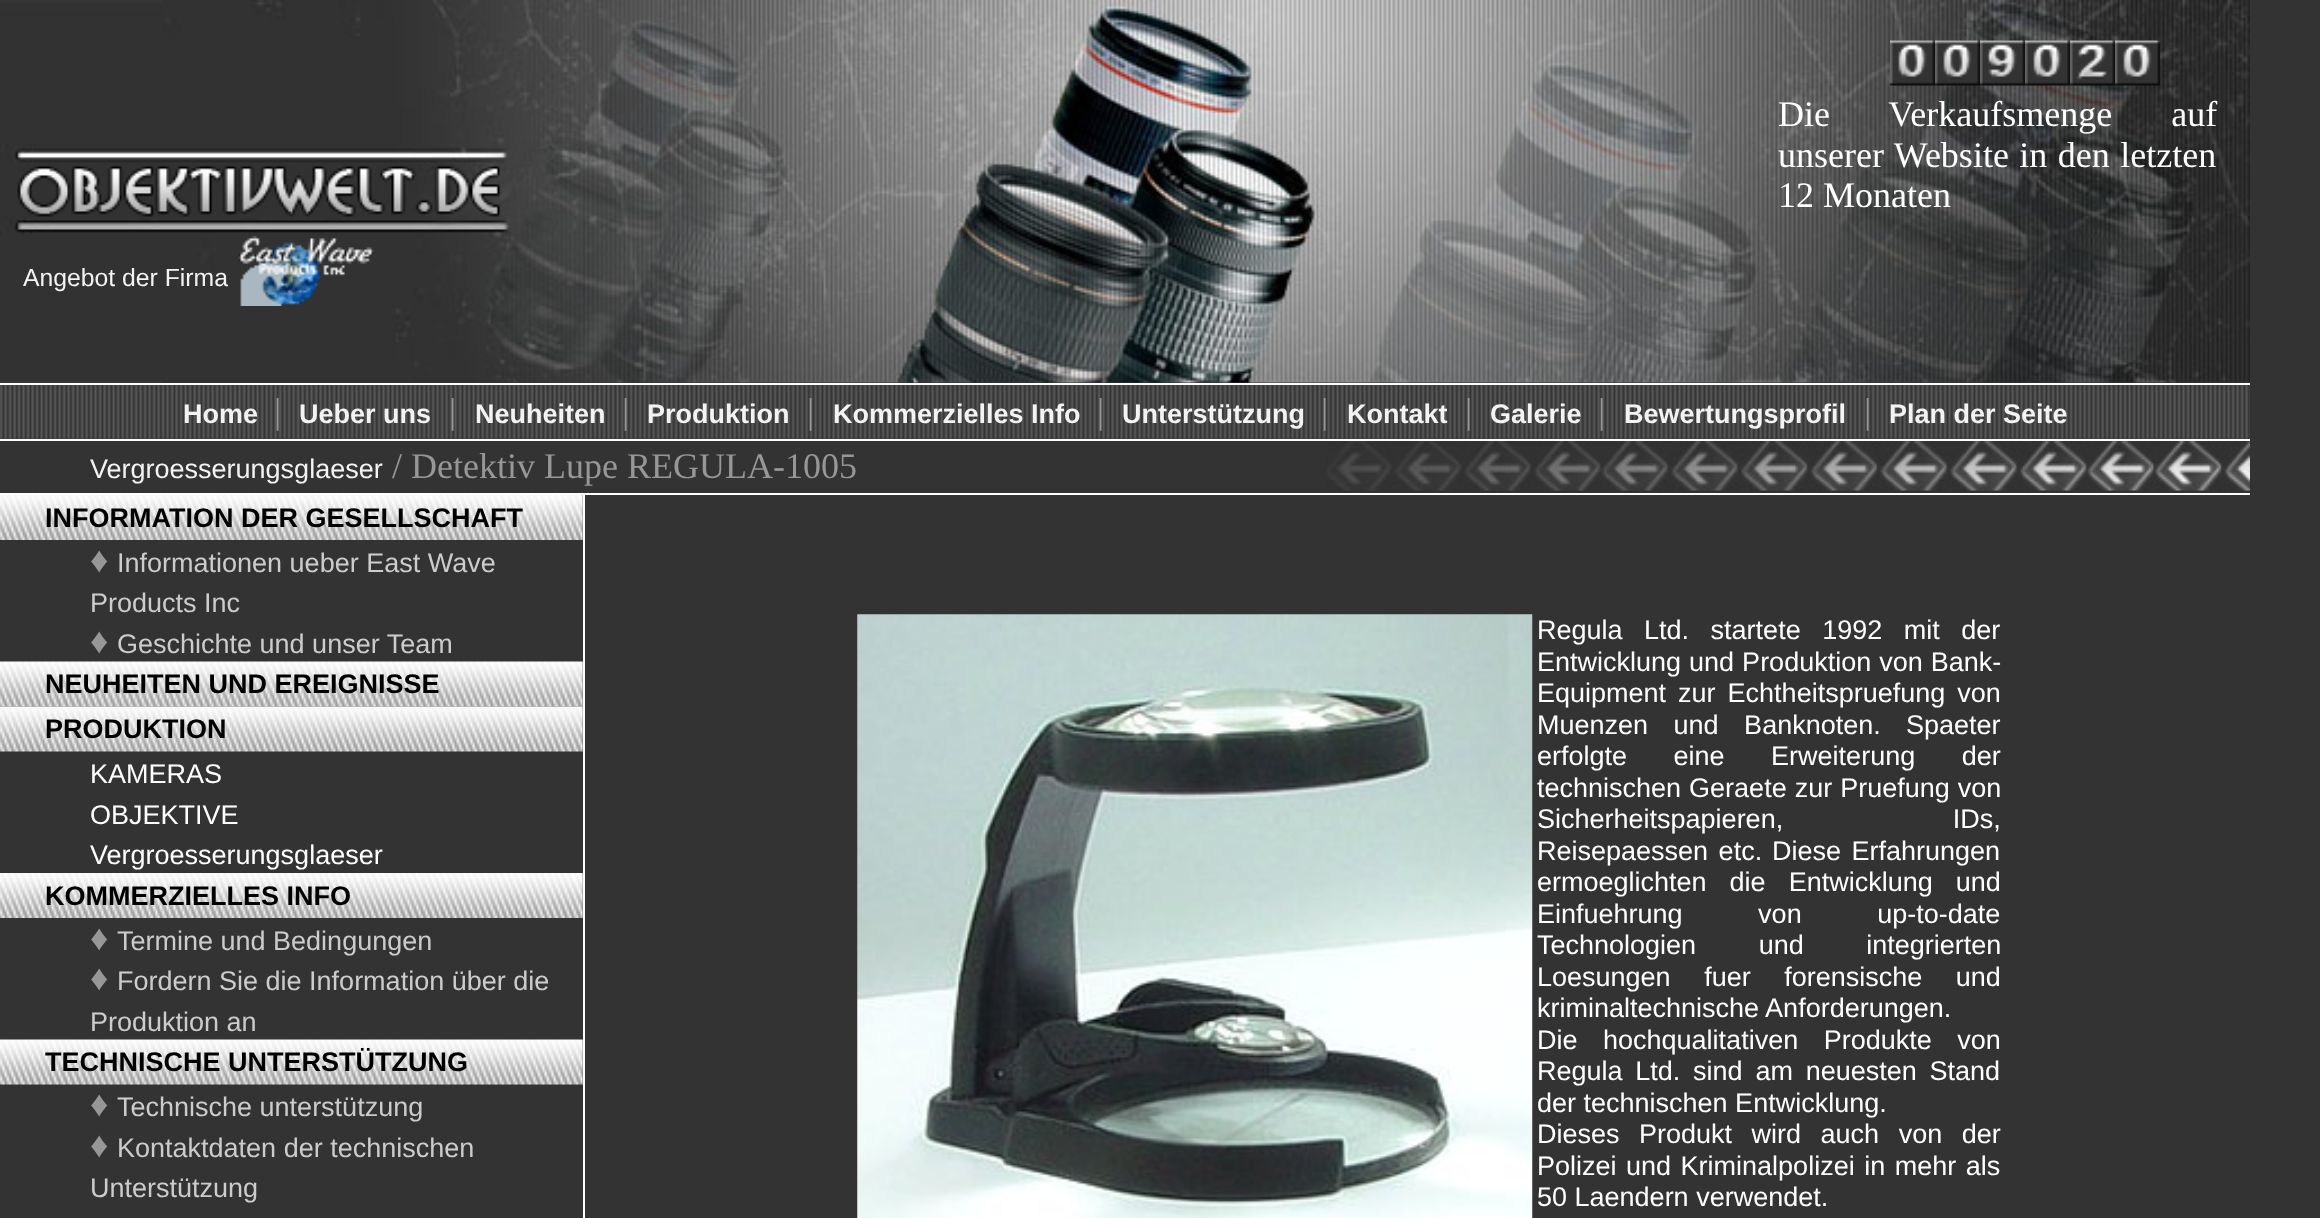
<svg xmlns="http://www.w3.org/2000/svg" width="2320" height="1218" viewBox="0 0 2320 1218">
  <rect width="100%" height="100%" fill="rgb(51,51,51)"/>
  <image x="585" y="0" width="945" height="383" href="pic1.png"/>
  <image x="1530" y="0" width="720" height="383" href="pic2.png"/>
  <image x="1890" y="40" width="45" height="46" href="pic3.png"/>
  <image x="1935" y="40" width="45" height="46" href="pic4.png"/>
  <image x="1980" y="40" width="45" height="46" href="pic5.png"/>
  <image x="2025" y="40" width="45" height="46" href="pic6.png"/>
  <image x="2070" y="40" width="45" height="46" href="pic7.png"/>
  <image x="2115" y="40" width="45" height="46" href="pic8.png"/>
  <g font-family="Liberation Serif" font-size="36" fill="rgb(255,255,255)">
    <text>
      <tspan x="1778" y="126" word-spacing="50">Die Verkaufsmenge auf</tspan>
      <tspan x="1778" y="167" word-spacing="1.5">unserer Website in den letzten</tspan>
      <tspan x="1778" y="207">12 Monaten</tspan>
    </text>
  </g>
  <image x="0" y="0" width="585" height="383" href="pic9.png"/>
  <text x="23" y="286" font-family="Liberation Sans" font-size="24.75" fill="rgb(243,243,243)">Angebot der Firma</text>
  <image x="238" y="236" width="136" height="70" href="pic10.png"/>
  <image x="0" y="385" width="2250" height="54" href="pic11.png"/>
  <rect x="0" y="383" width="2250" height="2" fill="rgb(255,255,255)"/>
  <text x="183" y="423" font-family="Liberation Sans" font-size="27" font-weight="bold" fill="rgb(243,243,243)">Home</text>
  <text x="274" y="423" font-family="Liberation Serif" font-size="36" fill="rgb(151,151,151)">|</text>
  <text x="299" y="423" font-family="Liberation Sans" font-size="27" font-weight="bold" fill="rgb(243,243,243)">Ueber uns</text>
  <text x="449" y="423" font-family="Liberation Serif" font-size="36" fill="rgb(151,151,151)">|</text>
  <text x="475" y="423" font-family="Liberation Sans" font-size="27" font-weight="bold" fill="rgb(243,243,243)">Neuheiten</text>
  <text x="622" y="423" font-family="Liberation Serif" font-size="36" fill="rgb(151,151,151)">|</text>
  <text x="647" y="423" font-family="Liberation Sans" font-size="27" font-weight="bold" fill="rgb(243,243,243)">Produktion</text>
  <text x="807" y="423" font-family="Liberation Serif" font-size="36" fill="rgb(151,151,151)">|</text>
  <text x="833" y="423" font-family="Liberation Sans" font-size="27" font-weight="bold" fill="rgb(243,243,243)">Kommerzielles Info</text>
  <text x="1097" y="423" font-family="Liberation Serif" font-size="36" fill="rgb(151,151,151)">|</text>
  <text x="1122" y="423" font-family="Liberation Sans" font-size="27" font-weight="bold" fill="rgb(243,243,243)">Unterstützung</text>
  <text x="1321" y="423" font-family="Liberation Serif" font-size="36" fill="rgb(151,151,151)">|</text>
  <text x="1347" y="423" font-family="Liberation Sans" font-size="27" font-weight="bold" fill="rgb(243,243,243)">Kontakt</text>
  <text x="1465" y="423" font-family="Liberation Serif" font-size="36" fill="rgb(151,151,151)">|</text>
  <text x="1490" y="423" font-family="Liberation Sans" font-size="27" font-weight="bold" fill="rgb(243,243,243)">Galerie</text>
  <text x="1598" y="423" font-family="Liberation Serif" font-size="36" fill="rgb(151,151,151)">|</text>
  <text x="1624" y="423" font-family="Liberation Sans" font-size="27" font-weight="bold" fill="rgb(243,243,243)">Bewertungsprofil</text>
  <text x="1864" y="423" font-family="Liberation Serif" font-size="36" fill="rgb(151,151,151)">|</text>
  <text x="1889" y="423" font-family="Liberation Sans" font-size="27" font-weight="bold" fill="rgb(243,243,243)">Plan der Seite</text>
  <image x="1327" y="441" width="923" height="50" href="pic12.png"/>
  <rect x="0" y="439" width="2250" height="2" fill="rgb(255,255,255)"/>
  <rect x="0" y="493" width="2250" height="2" fill="rgb(255,255,255)"/>
  <text x="90" y="478" font-family="Liberation Sans" font-size="27" fill="rgb(243,243,243)">Vergroesserungsglaeser</text>
  <text x="392" y="478" font-family="Liberation Serif" font-size="36" fill="rgb(151,151,151)">/ Detektiv Lupe REGULA-1005</text>
  <rect x="583" y="495" width="2" height="723" fill="rgb(255,255,255)"/>
  <image x="0" y="495" width="583" height="45" href="pic13.png"/>
  <text x="45" y="527" font-family="Liberation Sans" font-size="27" font-weight="bold" fill="rgb(0,0,0)">INFORMATION DER GESELLSCHAFT</text>
  <text x="90" y="572" font-family="Liberation Serif" font-size="36" fill="rgb(151,151,151)">♦</text>
  <g font-family="Liberation Sans" font-size="27" fill="rgb(204,204,204)">
    <text x="117" y="572">Informationen ueber East Wave</text>
    <text x="90" y="612">Products Inc</text>
  </g>
  <text x="90" y="653" font-family="Liberation Serif" font-size="36" fill="rgb(151,151,151)">♦</text>
  <text x="117" y="653" font-family="Liberation Sans" font-size="27" fill="rgb(204,204,204)">Geschichte und unser Team</text>
  <image x="0" y="661" width="583" height="46" href="pic14.png"/>
  <text x="45" y="693" font-family="Liberation Sans" font-size="27" font-weight="bold" fill="rgb(0,0,0)">NEUHEITEN UND EREIGNISSE</text>
  <image x="0" y="706" width="583" height="46" href="pic15.png"/>
  <text x="45" y="738" font-family="Liberation Sans" font-size="27" font-weight="bold" fill="rgb(0,0,0)">PRODUKTION</text>
  <g font-family="Liberation Sans" font-size="27" fill="rgb(255,255,255)">
    <text>
      <tspan x="90" y="783">KAMERAS</tspan>
      <tspan x="90" y="824">OBJEKTIVE</tspan>
      <tspan x="90" y="864">Vergroesserungsglaeser</tspan>
    </text>
  </g>
  <image x="0" y="873" width="583" height="45" href="pic16.png"/>
  <text x="45" y="905" font-family="Liberation Sans" font-size="27" font-weight="bold" fill="rgb(0,0,0)">KOMMERZIELLES INFO</text>
  <text x="90" y="950" font-family="Liberation Serif" font-size="36" fill="rgb(151,151,151)">♦</text>
  <text x="117" y="950" font-family="Liberation Sans" font-size="27" fill="rgb(204,204,204)">Termine und Bedingungen</text>
  <text x="90" y="990" font-family="Liberation Serif" font-size="36" fill="rgb(151,151,151)">♦</text>
  <g font-family="Liberation Sans" font-size="27" fill="rgb(204,204,204)">
    <text x="117" y="990">Fordern Sie die Information über die</text>
    <text x="90" y="1031">Produktion an</text>
  </g>
  <image x="0" y="1039" width="583" height="46" href="pic17.png"/>
  <text x="45" y="1071" font-family="Liberation Sans" font-size="27" font-weight="bold" fill="rgb(0,0,0)">TECHNISCHE UNTERSTÜTZUNG</text>
  <text x="90" y="1116" font-family="Liberation Serif" font-size="36" fill="rgb(151,151,151)">♦</text>
  <text x="117" y="1116" font-family="Liberation Sans" font-size="27" fill="rgb(204,204,204)">Technische unterstützung</text>
  <text x="90" y="1157" font-family="Liberation Serif" font-size="36" fill="rgb(151,151,151)">♦</text>
  <g font-family="Liberation Sans" font-size="27" fill="rgb(204,204,204)">
    <text x="117" y="1157">Kontaktdaten der technischen</text>
    <text x="90" y="1197">Unterstützung</text>
  </g>
  <image x="857" y="614" width="676" height="604" href="pic18.png"/>
  <g font-family="Liberation Sans" font-size="27" fill="rgb(255,255,255)">
    <text>
      <tspan x="1537" y="639" word-spacing="14">Regula Ltd. startete 1992 mit der</tspan>
      <tspan x="1537" y="671" word-spacing="0.5">Entwicklung und Produktion von Bank-</tspan>
      <tspan x="1537" y="702" word-spacing="4.5">Equipment zur Echtheitspruefung von</tspan>
      <tspan x="1537" y="734" word-spacing="18">Muenzen und Banknoten.</tspan>
    </text>
    <text x="1906" y="734">Spaeter</text>
    <text>
      <tspan x="1537" y="765" word-spacing="39">erfolgte eine Erweiterung der</tspan>
      <tspan x="1537" y="797" word-spacing="0.5">technischen Geraete zur Pruefung von</tspan>
      <tspan x="1537" y="828" word-spacing="162">Sicherheitspapieren, IDs,</tspan>
      <tspan x="1537" y="860" word-spacing="3">Reisepaessen etc.</tspan>
    </text>
    <text x="1772" y="860" word-spacing="3">Diese Erfahrungen</text>
    <text>
      <tspan x="1537" y="891" word-spacing="15.5">ermoeglichten die Entwicklung und</tspan>
      <tspan x="1537" y="923" word-spacing="68">Einfuehrung von up-to-date</tspan>
      <tspan x="1537" y="954" word-spacing="55">Technologien und integrierten</tspan>
      <tspan x="1537" y="986" word-spacing="26">Loesungen fuer forensische und</tspan>
      <tspan x="1537" y="1017">kriminaltechnische Anforderungen.</tspan>
      <tspan x="1537" y="1049" word-spacing="18">Die hochqualitativen Produkte von</tspan>
      <tspan x="1537" y="1080" word-spacing="5.25">Regula Ltd. sind am neuesten Stand</tspan>
      <tspan x="1537" y="1112">der technischen Entwicklung.</tspan>
      <tspan x="1537" y="1143" word-spacing="12">Dieses Produkt wird auch von der</tspan>
      <tspan x="1537" y="1175" word-spacing="2">Polizei und Kriminalpolizei in mehr als</tspan>
      <tspan x="1537" y="1206">50 Laendern verwendet.</tspan>
    </text>
  </g>
</svg>
